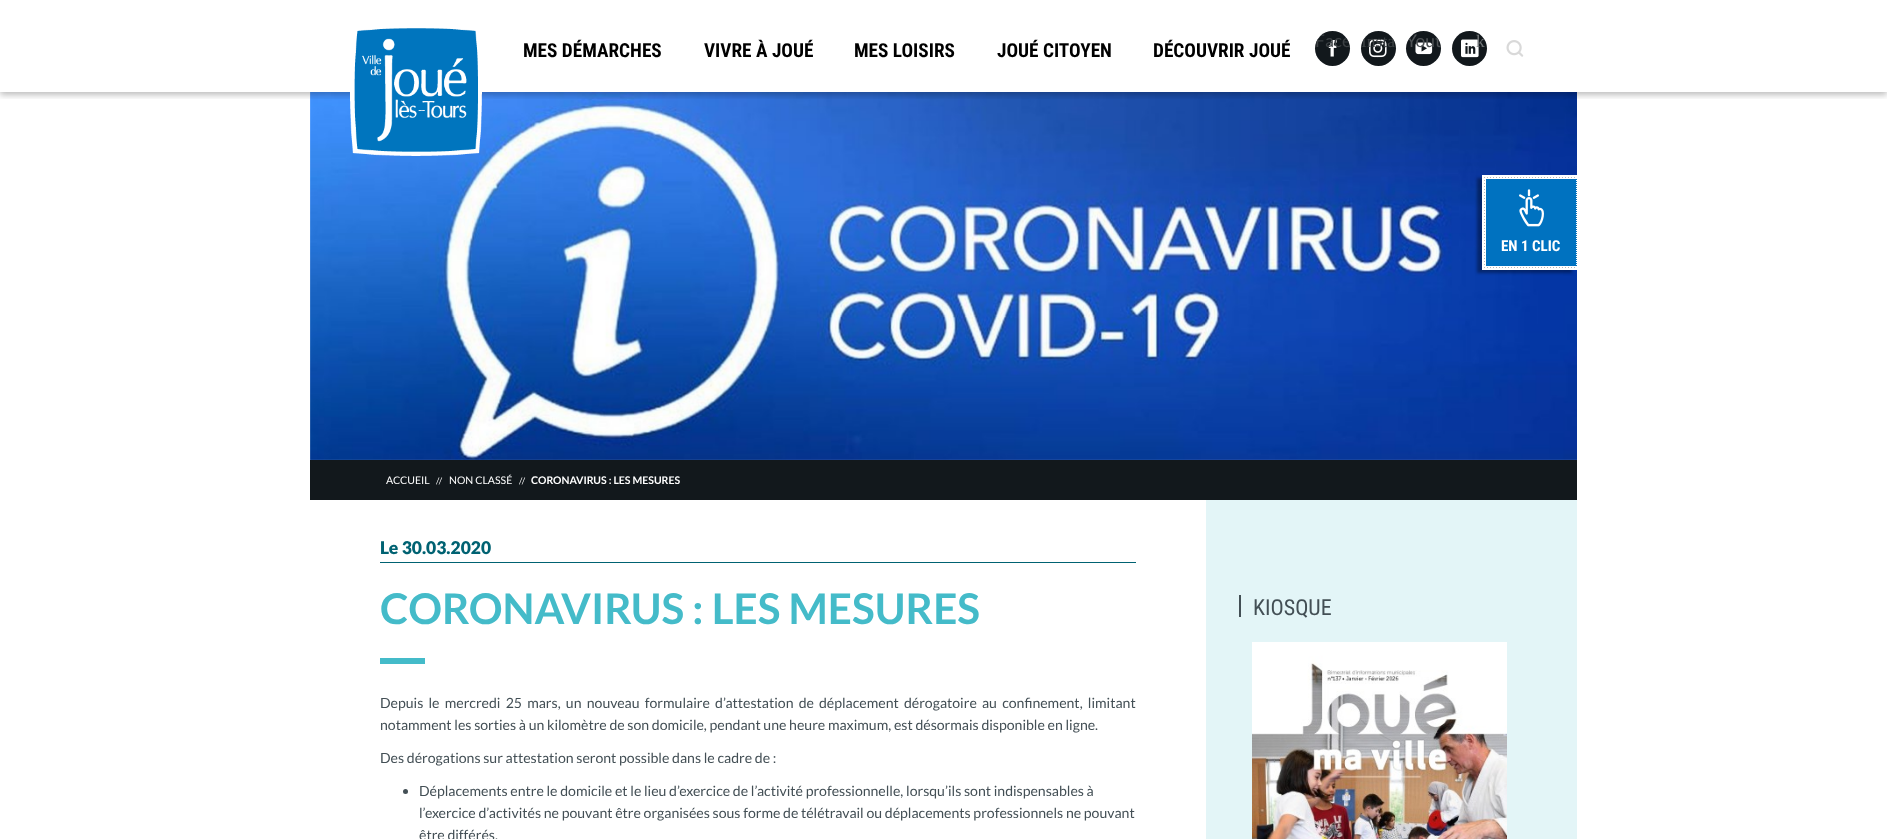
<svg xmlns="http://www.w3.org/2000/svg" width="1887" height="839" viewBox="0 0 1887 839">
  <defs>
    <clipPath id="clip1"><rect x="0" y="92" width="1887" height="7"/></clipPath>
    <clipPath id="clip2"><rect x="1315" y="31" width="35" height="35" rx="17.5"/></clipPath>
    <clipPath id="clip3"><rect x="1361" y="31" width="35" height="35" rx="17.5"/></clipPath>
    <clipPath id="clip4"><rect x="1406" y="31" width="35" height="35" rx="17.5"/></clipPath>
  </defs>
  <rect width="100%" height="100%" fill="rgb(255,255,255)"/>
  <image x="310" y="92" width="1267" height="368" href="pic7.png"/>
  <g clip-path="url(#clip1)">
    <rect x="0" y="3" width="1887" height="92" fill="rgba(0,0,0,0.26)" filter="blur(3px)"/>
  </g>
  <image x="350" y="28" width="132" height="128" href="pic1.png"/>
  <g font-family="Roboto Condensed" font-size="19.25" font-weight="bold" fill="rgb(0,0,0)">
    <text x="523" y="57">MES DÉMARCHES</text>
    <text x="704" y="57">VIVRE À JOUÉ</text>
    <text x="854" y="57">MES LOISIRS</text>
    <text x="997" y="57">JOUÉ CITOYEN</text>
    <text x="1153" y="57">DÉCOUVRIR JOUÉ</text>
  </g>
  <circle cx="1332.5" cy="48.5" r="17.5" fill="rgb(18,24,28)"/>
  <image x="1328" y="40" width="9" height="17" href="pic2.png"/>
  <g clip-path="url(#clip2)">
    <text x="1315" y="47" font-family="Lato" font-size="17.5" fill="rgb(60,65,68)">Face</text>
  </g>
  <circle cx="1378.5" cy="48.5" r="17.5" fill="rgb(18,24,28)"/>
  <image x="1369" y="39" width="18" height="19" href="pic3.png"/>
  <g clip-path="url(#clip3)">
    <text x="1361" y="47" font-family="Liberation Serif" font-size="17.5" fill="rgb(60,65,68)">Insta</text>
  </g>
  <circle cx="1423.5" cy="48.5" r="17.5" fill="rgb(18,24,28)"/>
  <image x="1415" y="42" width="18" height="13" href="pic4.png"/>
  <g clip-path="url(#clip4)">
    <text x="1406" y="47" font-family="Lato" font-size="17.5" fill="rgb(79,83,86)">Yout</text>
  </g>
  <circle cx="1469.5" cy="48.5" r="17.5" fill="rgb(18,24,28)"/>
  <image x="1461" y="39" width="18" height="19" href="pic5.png"/>
  <text x="1476" y="47" font-family="Liberation Serif" font-size="17.5" fill="rgb(115,119,121)">k</text>
  <image x="1506" y="40" width="18" height="17" href="pic6.png"/>
  <rect x="1477" y="178" width="95" height="95" fill="rgba(0,0,0,0.35)" filter="blur(1.5px)"/>
  <rect x="1482" y="175" width="95" height="95" fill="rgb(255,255,255)"/>
  <image x="1484" y="177" width="91" height="91" href="pic8.png"/>
  <rect x="1486" y="179" width="90" height="87" fill="rgb(0,114,192)"/>
  <image x="1519" y="189" width="25" height="38" href="pic9.png"/>
  <text x="1501" y="251" font-family="Roboto Condensed" font-size="15" font-weight="bold" fill="rgb(255,255,255)">EN 1 CLIC</text>
  <rect x="1576" y="178" width="1" height="88" fill="rgb(0,114,192)"/>
  <path d="M1576.5 178V266" fill="none" stroke="rgb(255,255,255)" stroke-dasharray="1 1"/>
  <rect x="310" y="460" width="1267" height="40" fill="rgb(18,24,28)"/>
  <text x="386" y="484" font-family="Lato" font-size="10.5" fill="rgb(255,255,255)">ACCUEIL</text>
  <text x="436" y="484" font-family="Lato" font-size="9" fill="rgb(255,255,255)">//</text>
  <text x="449" y="484" font-family="Lato" font-size="10.5" fill="rgb(255,255,255)">NON CLASSÉ</text>
  <text x="519" y="484" font-family="Lato" font-size="9" fill="rgb(255,255,255)">//</text>
  <text x="531" y="484" font-family="Lato" font-size="10.5" font-weight="bold" fill="rgb(255,255,255)">CORONAVIRUS : LES MESURES</text>
  <rect x="380" y="562" width="756" height="1" fill="rgb(0,98,114)"/>
  <text x="380" y="554" font-family="Lato" font-size="17.5" font-weight="900" fill="rgb(0,98,114)">Le 30.03.2020</text>
  <text x="380" y="624" font-family="Lato" font-size="42.25" font-weight="bold" fill="rgb(68,187,201)">CORONAVIRUS : LES MESURES</text>
  <rect x="380" y="658" width="45" height="6" fill="rgb(68,187,201)"/>
  <g font-family="Lato" font-size="14.08" fill="rgb(67,79,85)">
    <text x="380" y="708" word-spacing="2.5">Depuis le mercredi 25 mars, un nouveau formulaire d’attestation de</text>
    <text x="819" y="708" word-spacing="2.5">déplacement dérogatoire au confinement, limitant</text>
    <text x="380" y="730">notamment les sorties à un kilomètre de son domicile, pendant une heure maximum, est désormais disponible en ligne.</text>
    <text x="380" y="763">Des dérogations sur attestation seront possible dans le cadre de :</text>
  </g>
  <circle cx="405.5" cy="791.5" r="2.5" fill="rgb(67,79,85)"/>
  <g font-family="Lato" font-size="14.08" fill="rgb(67,79,85)">
    <text>
      <tspan x="419" y="796">Déplacements entre le domicile et le lieu d’exercice de l’activité professionnelle, lorsqu’ils sont indispensables à</tspan>
      <tspan x="419" y="818">l’exercice d’activités ne pouvant être organisées sous forme de télétravail ou déplacements professionnels ne pouvant</tspan>
      <tspan x="419" y="840">être différés.</tspan>
    </text>
  </g>
  <rect x="1206" y="500" width="371" height="339" fill="rgb(227,245,247)"/>
  <rect x="1239" y="595" width="2" height="22" fill="rgb(67,79,85)"/>
  <text x="1253" y="615" font-family="Roboto Condensed" font-size="22" fill="rgb(67,79,85)">KIOSQUE</text>
  <image x="1252" y="642" width="255" height="197" href="pic10.png"/>
</svg>
